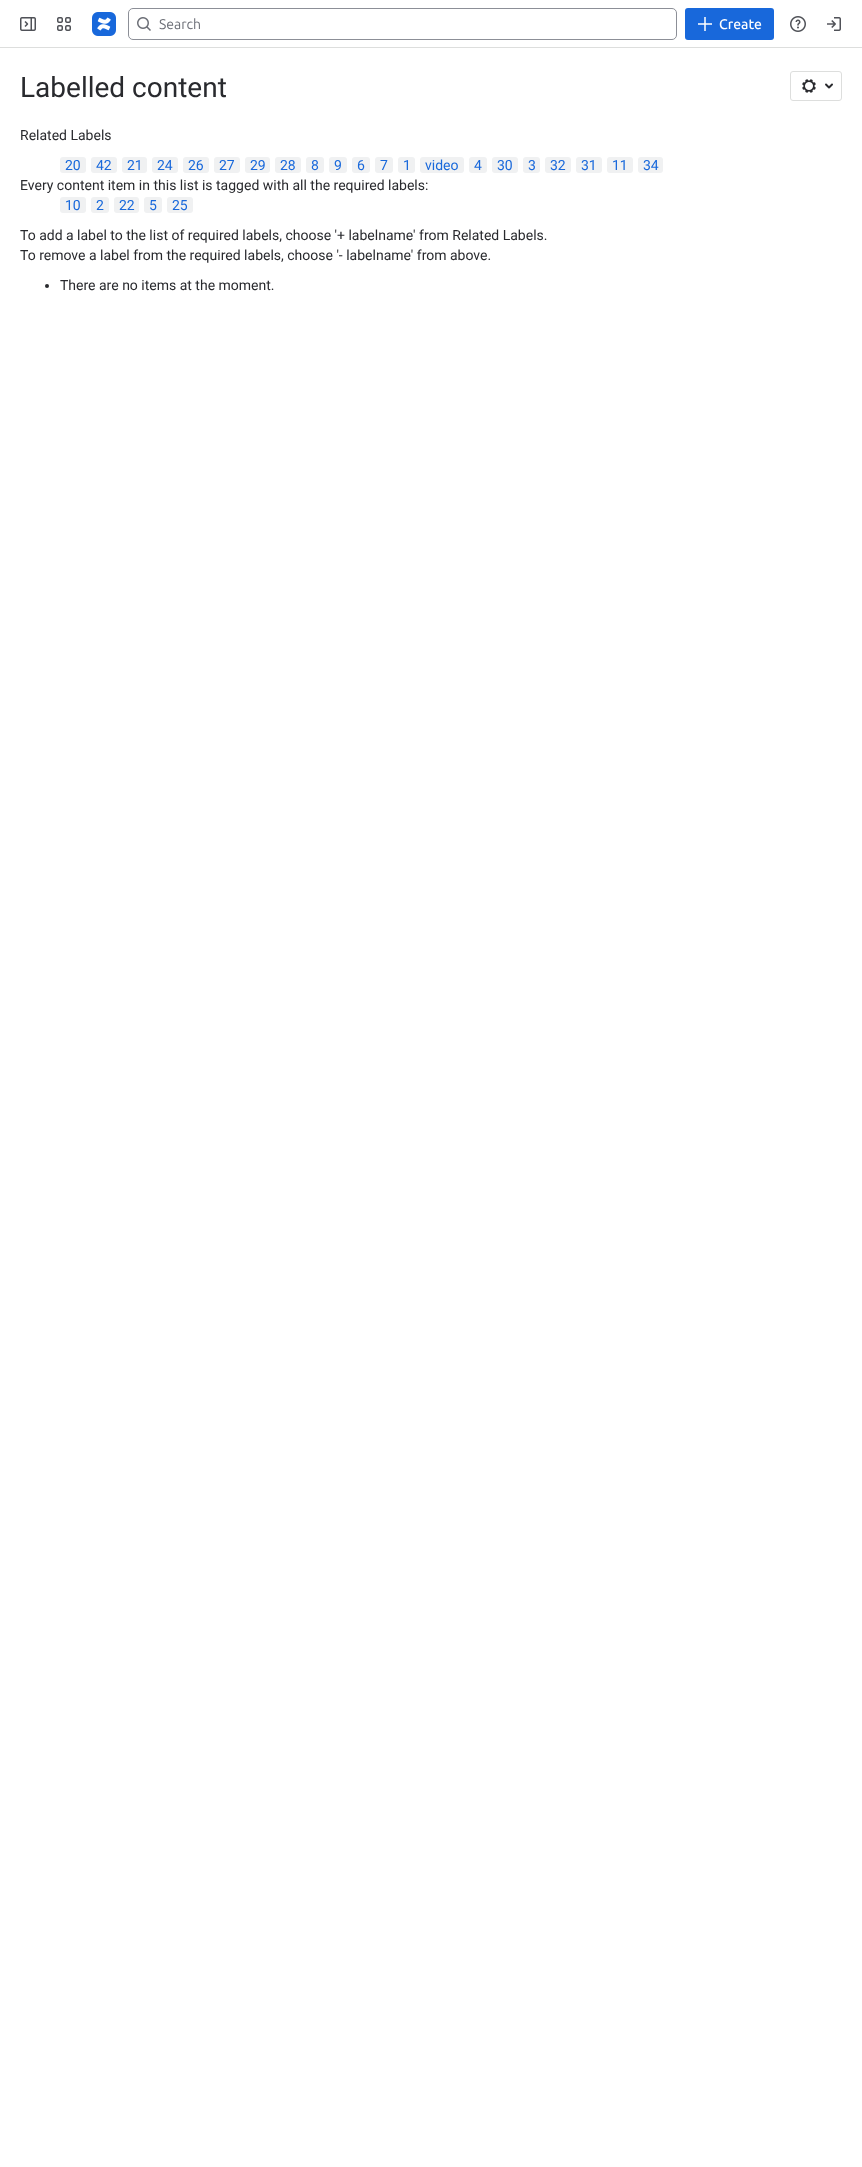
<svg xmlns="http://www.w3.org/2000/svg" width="862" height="2167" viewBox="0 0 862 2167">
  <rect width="100%" height="100%" fill="rgb(255,255,255)"/>
  <rect x="0" y="47" width="862" height="1" fill="rgb(221,222,221)"/>
  <image x="20" y="17" width="16" height="14" href="pic1.png"/>
  <image x="57" y="17" width="14" height="14" href="pic2.png"/>
  <image x="92" y="12" width="24" height="24" href="pic3.png"/>
  <rect x="128.5" y="8.5" width="548" height="31" rx="4.5" fill="none" stroke="rgb(140,143,151)"/>
  <image x="137" y="17" width="14" height="14" href="pic4.png"/>
  <text x="159" y="29" font-family="Ubuntu" font-size="14" fill="rgb(107,110,118)">Search</text>
  <rect x="685" y="8" width="89" height="32" rx="3" fill="rgb(24,104,219)"/>
  <image x="698" y="17" width="14" height="14" href="pic5.png"/>
  <text x="719" y="29" font-family="Ubuntu" font-size="14" font-weight="500" fill="rgb(255,255,255)">Create</text>
  <image x="790" y="16" width="16" height="16" href="pic6.png"/>
  <image x="827" y="17" width="14" height="14" href="pic7.png"/>
  <text x="20" y="97" font-family="Roboto" font-size="28" fill="rgb(41,42,46)">Labelled content</text>
  <rect x="790.5" y="71.5" width="51" height="29" rx="2.5" fill="none" stroke="rgb(221,222,221)"/>
  <image x="802" y="79" width="14" height="14" href="pic8.png"/>
  <image x="825" y="83" width="8" height="6" href="pic9.png"/>
  <text x="20" y="140" font-family="Roboto" font-size="14" fill="rgb(41,42,46)">Related Labels</text>
  <rect x="60" y="157" width="26" height="16" rx="3" fill="rgb(240,241,242)"/>
  <text x="65" y="170" font-family="Roboto" font-size="14" fill="rgb(24,104,219)">20</text>
  <rect x="91" y="157" width="26" height="16" rx="3" fill="rgb(240,241,242)"/>
  <text x="96" y="170" font-family="Roboto" font-size="14" fill="rgb(24,104,219)">42</text>
  <rect x="122" y="157" width="25" height="16" rx="3" fill="rgb(240,241,242)"/>
  <text x="127" y="170" font-family="Roboto" font-size="14" fill="rgb(24,104,219)">21</text>
  <rect x="152" y="157" width="26" height="16" rx="3" fill="rgb(240,241,242)"/>
  <text x="157" y="170" font-family="Roboto" font-size="14" fill="rgb(24,104,219)">24</text>
  <rect x="183" y="157" width="26" height="16" rx="3" fill="rgb(240,241,242)"/>
  <text x="188" y="170" font-family="Roboto" font-size="14" fill="rgb(24,104,219)">26</text>
  <rect x="214" y="157" width="26" height="16" rx="3" fill="rgb(240,241,242)"/>
  <text x="219" y="170" font-family="Roboto" font-size="14" fill="rgb(24,104,219)">27</text>
  <rect x="245" y="157" width="25" height="16" rx="3" fill="rgb(240,241,242)"/>
  <text x="250" y="170" font-family="Roboto" font-size="14" fill="rgb(24,104,219)">29</text>
  <rect x="275" y="157" width="26" height="16" rx="3" fill="rgb(240,241,242)"/>
  <text x="280" y="170" font-family="Roboto" font-size="14" fill="rgb(24,104,219)">28</text>
  <rect x="306" y="157" width="18" height="16" rx="3" fill="rgb(240,241,242)"/>
  <text x="311" y="170" font-family="Roboto" font-size="14" fill="rgb(24,104,219)">8</text>
  <rect x="329" y="157" width="18" height="16" rx="3" fill="rgb(240,241,242)"/>
  <text x="334" y="170" font-family="Roboto" font-size="14" fill="rgb(24,104,219)">9</text>
  <rect x="352" y="157" width="18" height="16" rx="3" fill="rgb(240,241,242)"/>
  <text x="357" y="170" font-family="Roboto" font-size="14" fill="rgb(24,104,219)">6</text>
  <rect x="375" y="157" width="18" height="16" rx="3" fill="rgb(240,241,242)"/>
  <text x="380" y="170" font-family="Roboto" font-size="14" fill="rgb(24,104,219)">7</text>
  <rect x="398" y="157" width="17" height="16" rx="3" fill="rgb(240,241,242)"/>
  <text x="403" y="170" font-family="Roboto" font-size="14" fill="rgb(24,104,219)">1</text>
  <rect x="420" y="157" width="44" height="16" rx="3" fill="rgb(240,241,242)"/>
  <text x="425" y="170" font-family="Roboto" font-size="14" fill="rgb(24,104,219)">video</text>
  <rect x="469" y="157" width="18" height="16" rx="3" fill="rgb(240,241,242)"/>
  <text x="474" y="170" font-family="Roboto" font-size="14" fill="rgb(24,104,219)">4</text>
  <rect x="492" y="157" width="26" height="16" rx="3" fill="rgb(240,241,242)"/>
  <text x="497" y="170" font-family="Roboto" font-size="14" fill="rgb(24,104,219)">30</text>
  <rect x="523" y="157" width="17" height="16" rx="3" fill="rgb(240,241,242)"/>
  <text x="528" y="170" font-family="Roboto" font-size="14" fill="rgb(24,104,219)">3</text>
  <rect x="545" y="157" width="26" height="16" rx="3" fill="rgb(240,241,242)"/>
  <text x="550" y="170" font-family="Roboto" font-size="14" fill="rgb(24,104,219)">32</text>
  <rect x="576" y="157" width="26" height="16" rx="3" fill="rgb(240,241,242)"/>
  <text x="581" y="170" font-family="Roboto" font-size="14" fill="rgb(24,104,219)">31</text>
  <rect x="607" y="157" width="26" height="16" rx="3" fill="rgb(240,241,242)"/>
  <text x="612" y="170" font-family="Roboto" font-size="14" fill="rgb(24,104,219)">11</text>
  <rect x="638" y="157" width="25" height="16" rx="3" fill="rgb(240,241,242)"/>
  <text x="643" y="170" font-family="Roboto" font-size="14" fill="rgb(24,104,219)">34</text>
  <text x="20" y="190" font-family="Roboto" font-size="14" fill="rgb(41,42,46)">Every content item in this list is tagged with all the required labels:</text>
  <rect x="60" y="197" width="26" height="16" rx="3" fill="rgb(240,241,242)"/>
  <text x="65" y="210" font-family="Roboto" font-size="14" fill="rgb(24,104,219)">10</text>
  <rect x="91" y="197" width="18" height="16" rx="3" fill="rgb(240,241,242)"/>
  <text x="96" y="210" font-family="Roboto" font-size="14" fill="rgb(24,104,219)">2</text>
  <rect x="114" y="197" width="25" height="16" rx="3" fill="rgb(240,241,242)"/>
  <text x="119" y="210" font-family="Roboto" font-size="14" fill="rgb(24,104,219)">22</text>
  <rect x="144" y="197" width="18" height="16" rx="3" fill="rgb(240,241,242)"/>
  <text x="149" y="210" font-family="Roboto" font-size="14" fill="rgb(24,104,219)">5</text>
  <rect x="167" y="197" width="26" height="16" rx="3" fill="rgb(240,241,242)"/>
  <text x="172" y="210" font-family="Roboto" font-size="14" fill="rgb(24,104,219)">25</text>
  <g font-family="Roboto" font-size="14" fill="rgb(41,42,46)">
    <text>
      <tspan x="20" y="240">To add a label to the list of required labels, choose '+ labelname' from Related Labels.</tspan>
      <tspan x="20" y="260">To remove a label from the required labels, choose '- labelname' from above.</tspan>
    </text>
  </g>
  <circle cx="47" cy="286" r="2" fill="rgb(41,42,46)"/>
  <text x="60" y="290" font-family="Roboto" font-size="14" fill="rgb(41,42,46)">There are no items at the moment.</text>
</svg>
